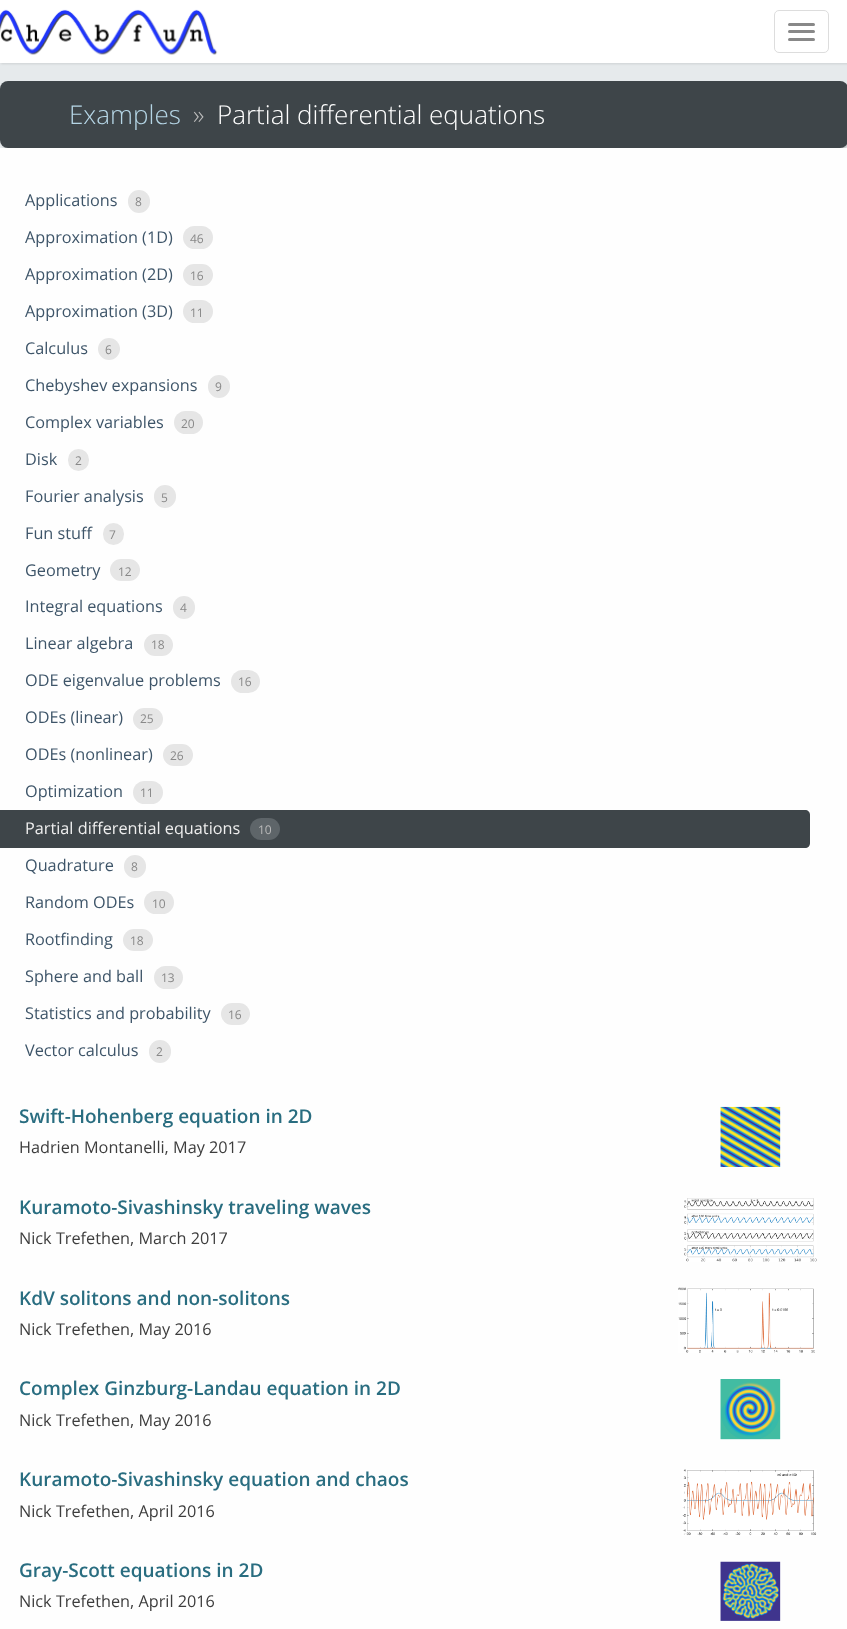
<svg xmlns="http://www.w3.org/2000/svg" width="847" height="1629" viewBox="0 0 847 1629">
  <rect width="100%" height="100%" fill="rgb(230,234,236)"/>
  <rect x="1" y="1" width="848" height="63" fill="rgba(0,0,0,0.1)" filter="blur(1px)"/>
  <rect x="0" y="0" width="847" height="63" fill="rgb(255,255,255)"/>
  <image x="0" y="9" width="218" height="46" href="pic1.png"/>
  <rect x="774.5" y="10.5" width="54" height="42" rx="4.5" fill="none" stroke="rgb(221,221,221)"/>
  <rect x="788" y="23" width="27" height="3" rx="1.5" fill="rgb(136,136,136)"/>
  <rect x="788" y="30" width="27" height="3" rx="1.5" fill="rgb(136,136,136)"/>
  <rect x="788" y="38" width="27" height="3" rx="1.5" fill="rgb(136,136,136)"/>
  <rect x="1" y="83" width="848" height="66" rx="8" fill="rgba(0,0,0,0.2)" filter="blur(1px)"/>
  <rect x="0" y="81" width="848" height="67" rx="8" fill="rgb(62,69,73)"/>
  <text x="69" y="124" font-family="Open Sans" font-size="26" font-weight="300" fill="rgb(181,213,229)">Examples</text>
  <text x="193" y="124" font-family="Open Sans" font-size="26" font-weight="300" fill="rgb(187,187,187)">»</text>
  <text x="217" y="124" font-family="Open Sans" font-size="26" font-weight="300" fill="rgb(254,254,254)">Partial differential equations</text>
  <rect x="0" y="148" width="847" height="1481" fill="rgb(254,254,254)"/>
  <text x="25" y="206" font-family="Open Sans" font-size="16.25" fill="rgb(62,85,105)">Applications</text>
  <rect x="128" y="190" width="22" height="23" rx="11" fill="rgb(230,230,230)"/>
  <text x="135" y="206" font-family="Open Sans" font-size="12" fill="rgb(136,136,136)">8</text>
  <text x="25" y="243" font-family="Open Sans" font-size="16.25" fill="rgb(62,85,105)">Approximation (1D)</text>
  <rect x="183" y="226" width="30" height="23" rx="11.5" fill="rgb(230,230,230)"/>
  <text x="190" y="243" font-family="Open Sans" font-size="12" fill="rgb(136,136,136)">46</text>
  <text x="25" y="280" font-family="Open Sans" font-size="16.25" fill="rgb(62,85,105)">Approximation (2D)</text>
  <rect x="183" y="264" width="30" height="22" rx="11" fill="rgb(230,230,230)"/>
  <text x="190" y="280" font-family="Open Sans" font-size="12" fill="rgb(136,136,136)">16</text>
  <text x="25" y="317" font-family="Open Sans" font-size="16.25" fill="rgb(62,85,105)">Approximation (3D)</text>
  <rect x="183" y="300" width="30" height="23" rx="11.5" fill="rgb(230,230,230)"/>
  <text x="190" y="317" font-family="Open Sans" font-size="12" fill="rgb(136,136,136)">11</text>
  <text x="25" y="354" font-family="Open Sans" font-size="16.25" fill="rgb(62,85,105)">Calculus</text>
  <circle cx="109" cy="349" r="11" fill="rgb(230,230,230)"/>
  <text x="105" y="354" font-family="Open Sans" font-size="12" fill="rgb(136,136,136)">6</text>
  <text x="25" y="391" font-family="Open Sans" font-size="16.25" fill="rgb(62,85,105)">Chebyshev expansions</text>
  <rect x="208" y="375" width="22" height="23" rx="11" fill="rgb(230,230,230)"/>
  <text x="215" y="391" font-family="Open Sans" font-size="12" fill="rgb(136,136,136)">9</text>
  <text x="25" y="428" font-family="Open Sans" font-size="16.25" fill="rgb(62,85,105)">Complex variables</text>
  <rect x="174" y="411" width="29" height="23" rx="11.5" fill="rgb(230,230,230)"/>
  <text x="181" y="428" font-family="Open Sans" font-size="12" fill="rgb(136,136,136)">20</text>
  <text x="25" y="465" font-family="Open Sans" font-size="16.25" fill="rgb(62,85,105)">Disk</text>
  <rect x="68" y="449" width="21" height="22" rx="10.5" fill="rgb(230,230,230)"/>
  <text x="75" y="465" font-family="Open Sans" font-size="12" fill="rgb(136,136,136)">2</text>
  <text x="25" y="502" font-family="Open Sans" font-size="16.25" fill="rgb(62,85,105)">Fourier analysis</text>
  <rect x="154" y="485" width="22" height="23" rx="11" fill="rgb(230,230,230)"/>
  <text x="161" y="502" font-family="Open Sans" font-size="12" fill="rgb(136,136,136)">5</text>
  <text x="25" y="539" font-family="Open Sans" font-size="16.25" fill="rgb(62,85,105)">Fun stuff</text>
  <rect x="103" y="523" width="21" height="22" rx="10.5" fill="rgb(230,230,230)"/>
  <text x="109" y="539" font-family="Open Sans" font-size="12" fill="rgb(136,136,136)">7</text>
  <text x="25" y="576" font-family="Open Sans" font-size="16.25" fill="rgb(62,85,105)">Geometry</text>
  <rect x="110" y="559" width="30" height="22" rx="11" fill="rgb(230,230,230)"/>
  <text x="118" y="576" font-family="Open Sans" font-size="12" fill="rgb(136,136,136)">12</text>
  <text x="25" y="612" font-family="Open Sans" font-size="16.25" fill="rgb(62,85,105)">Integral equations</text>
  <rect x="173" y="596" width="22" height="23" rx="11" fill="rgb(230,230,230)"/>
  <text x="180" y="612" font-family="Open Sans" font-size="12" fill="rgb(136,136,136)">4</text>
  <text x="25" y="649" font-family="Open Sans" font-size="16.25" fill="rgb(62,85,105)">Linear algebra</text>
  <rect x="144" y="634" width="29" height="22" rx="11" fill="rgb(230,230,230)"/>
  <text x="151" y="649" font-family="Open Sans" font-size="12" fill="rgb(136,136,136)">18</text>
  <text x="25" y="686" font-family="Open Sans" font-size="16.25" fill="rgb(62,85,105)">ODE eigenvalue problems</text>
  <rect x="231" y="670" width="29" height="23" rx="11.5" fill="rgb(230,230,230)"/>
  <text x="238" y="686" font-family="Open Sans" font-size="12" fill="rgb(136,136,136)">16</text>
  <text x="25" y="723" font-family="Open Sans" font-size="16.25" fill="rgb(62,85,105)">ODEs (linear)</text>
  <rect x="133" y="708" width="30" height="22" rx="11" fill="rgb(230,230,230)"/>
  <text x="140" y="723" font-family="Open Sans" font-size="12" fill="rgb(136,136,136)">25</text>
  <text x="25" y="760" font-family="Open Sans" font-size="16.25" fill="rgb(62,85,105)">ODEs (nonlinear)</text>
  <rect x="163" y="744" width="30" height="22" rx="11" fill="rgb(230,230,230)"/>
  <text x="170" y="760" font-family="Open Sans" font-size="12" fill="rgb(136,136,136)">26</text>
  <text x="25" y="797" font-family="Open Sans" font-size="16.25" fill="rgb(62,85,105)">Optimization</text>
  <rect x="133" y="781" width="30" height="23" rx="11.5" fill="rgb(230,230,230)"/>
  <text x="140" y="797" font-family="Open Sans" font-size="12" fill="rgb(136,136,136)">11</text>
  <path d="M0 810H805C808 810 810 812 810 815V843C810 846 808 848 805 848H0Z" fill="rgb(62,69,73)"/>
  <text x="25" y="834" font-family="Open Sans" font-size="16.25" fill="rgb(238,238,238)">Partial differential equations</text>
  <rect x="250" y="818" width="30" height="22" rx="11" fill="rgb(94,101,105)"/>
  <text x="258" y="834" font-family="Open Sans" font-size="12" fill="rgb(187,187,187)">10</text>
  <text x="25" y="871" font-family="Open Sans" font-size="16.25" fill="rgb(62,85,105)">Quadrature</text>
  <rect x="124" y="855" width="22" height="23" rx="11" fill="rgb(230,230,230)"/>
  <text x="131" y="871" font-family="Open Sans" font-size="12" fill="rgb(136,136,136)">8</text>
  <text x="25" y="908" font-family="Open Sans" font-size="16.25" fill="rgb(62,85,105)">Random ODEs</text>
  <rect x="144" y="891" width="30" height="23" rx="11.5" fill="rgb(230,230,230)"/>
  <text x="152" y="908" font-family="Open Sans" font-size="12" fill="rgb(136,136,136)">10</text>
  <text x="25" y="945" font-family="Open Sans" font-size="16.25" fill="rgb(62,85,105)">Rootfinding</text>
  <rect x="123" y="929" width="30" height="22" rx="11" fill="rgb(230,230,230)"/>
  <text x="130" y="945" font-family="Open Sans" font-size="12" fill="rgb(136,136,136)">18</text>
  <text x="25" y="982" font-family="Open Sans" font-size="16.25" fill="rgb(62,85,105)">Sphere and ball</text>
  <rect x="154" y="966" width="29" height="23" rx="11.5" fill="rgb(230,230,230)"/>
  <text x="161" y="982" font-family="Open Sans" font-size="12" fill="rgb(136,136,136)">13</text>
  <text x="25" y="1019" font-family="Open Sans" font-size="16.25" fill="rgb(62,85,105)">Statistics and probability</text>
  <rect x="221" y="1003" width="29" height="22" rx="11" fill="rgb(230,230,230)"/>
  <text x="228" y="1019" font-family="Open Sans" font-size="12" fill="rgb(136,136,136)">16</text>
  <text x="25" y="1056" font-family="Open Sans" font-size="16.25" fill="rgb(62,85,105)">Vector calculus</text>
  <rect x="149" y="1040" width="22" height="23" rx="11" fill="rgb(230,230,230)"/>
  <text x="156" y="1056" font-family="Open Sans" font-size="12" fill="rgb(136,136,136)">2</text>
  <text x="19" y="1123" font-family="Open Sans" font-size="19" font-weight="600" fill="rgb(41,109,128)">Swift-Hohenberg equation in 2D</text>
  <image x="720" y="1106" width="61" height="61" href="pic2.png"/>
  <text x="19" y="1153" font-family="Open Sans" font-size="16.25" fill="rgb(61,61,61)">Hadrien Montanelli, May 2017</text>
  <text x="19" y="1214" font-family="Open Sans" font-size="19" font-weight="600" fill="rgb(41,109,128)">Kuramoto-Sivashinsky traveling waves</text>
  <image x="684" y="1198" width="133" height="64" href="pic3.png"/>
  <text x="19" y="1244" font-family="Open Sans" font-size="16.25" fill="rgb(61,61,61)">Nick Trefethen, March 2017</text>
  <text x="19" y="1305" font-family="Open Sans" font-size="19" font-weight="600" fill="rgb(41,109,128)">KdV solitons and non-solitons</text>
  <image x="678" y="1287" width="137" height="66" href="pic4.png"/>
  <text x="19" y="1335" font-family="Open Sans" font-size="16.25" fill="rgb(61,61,61)">Nick Trefethen, May 2016</text>
  <text x="19" y="1395" font-family="Open Sans" font-size="19" font-weight="600" fill="rgb(41,109,128)">Complex Ginzburg-Landau equation in 2D</text>
  <image x="720" y="1379" width="61" height="61" href="pic5.png"/>
  <text x="19" y="1426" font-family="Open Sans" font-size="16.25" fill="rgb(61,61,61)">Nick Trefethen, May 2016</text>
  <text x="19" y="1486" font-family="Open Sans" font-size="19" font-weight="600" fill="rgb(41,109,128)">Kuramoto-Sivashinsky equation and chaos</text>
  <image x="682" y="1469" width="135" height="67" href="pic6.png"/>
  <text x="19" y="1517" font-family="Open Sans" font-size="16.25" fill="rgb(61,61,61)">Nick Trefethen, April 2016</text>
  <text x="19" y="1577" font-family="Open Sans" font-size="19" font-weight="600" fill="rgb(41,109,128)">Gray-Scott equations in 2D</text>
  <image x="720" y="1561" width="61" height="60" href="pic7.png"/>
  <text x="19" y="1607" font-family="Open Sans" font-size="16.25" fill="rgb(61,61,61)">Nick Trefethen, April 2016</text>
</svg>
